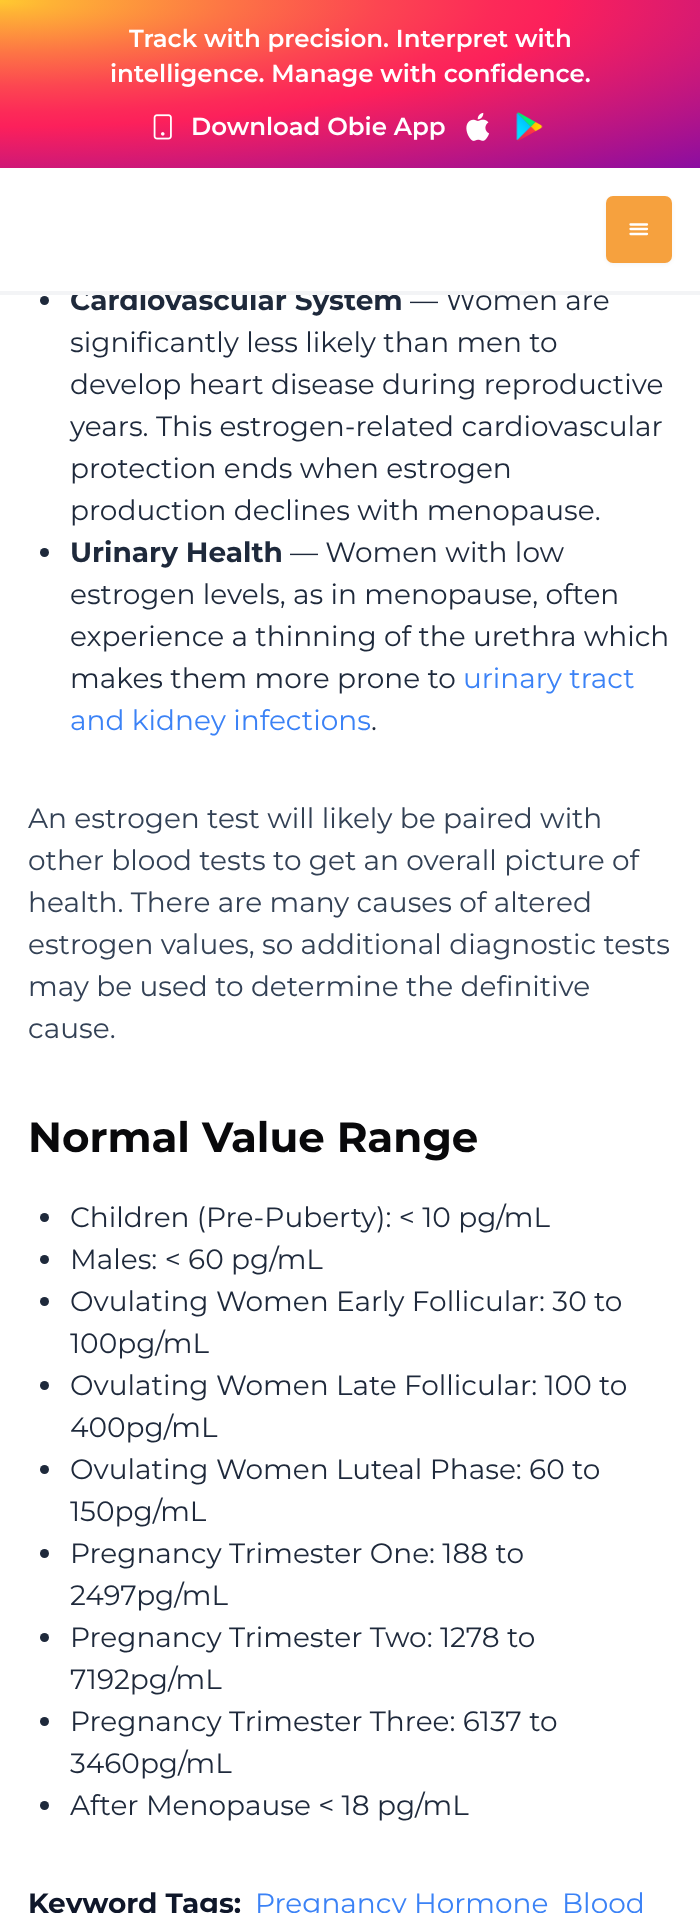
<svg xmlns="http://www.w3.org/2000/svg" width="700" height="1913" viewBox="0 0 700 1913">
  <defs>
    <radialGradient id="g1" gradientUnits="userSpaceOnUse" cx="0" cy="0" r="1" gradientTransform="matrix(1051 0 0 237 -1 1)"><stop offset="0" stop-color="rgb(255,202,48)"/><stop offset="0.05" stop-color="rgb(254,179,53)"/><stop offset="0.22" stop-color="rgb(253,116,69)"/><stop offset="0.36" stop-color="rgb(252,70,81)"/><stop offset="0.47" stop-color="rgb(252,42,88)"/><stop offset="0.53" stop-color="rgb(252,32,91)"/><stop offset="1" stop-color="rgb(131,12,166)"/></radialGradient>
  </defs>
  <rect width="100%" height="100%" fill="rgb(255,255,255)"/>
  <rect x="0" y="0" width="700" height="168" fill="url(#g1)"/>
  <g font-family="Montserrat" font-size="24.5" font-weight="600" fill="rgb(255,255,255)">
    <text x="129" y="47">Track with precision. Interpret with</text>
    <text x="110" y="82">intelligence. Manage with confidence.</text>
  </g>
  <image x="153" y="114" width="19" height="26" href="pic1.png"/>
  <text x="191" y="135" font-family="Montserrat" font-size="24.5" font-weight="600" fill="rgb(255,255,255)">Download Obie App</text>
  <image x="466" y="112" width="24" height="29" href="pic2.png"/>
  <image x="516" y="112" width="27" height="29" href="pic3.png"/>
  <text x="70" y="310" font-family="Montserrat" font-size="28" font-weight="bold" fill="rgb(30,41,59)">Cardiovascular System</text>
  <text x="410" y="310" font-family="Montserrat" font-size="28" fill="rgb(30,41,59)">— Women are</text>
  <rect x="77" y="288" width="399" height="3" fill="rgb(255,255,255)"/>
  <rect x="0" y="291" width="700" height="4" fill="rgb(243,244,246)"/>
  <rect x="606" y="198" width="66" height="66" rx="7" fill="rgba(0,0,0,0.05)" filter="blur(2px)"/>
  <rect x="606" y="196" width="66" height="67" rx="7" fill="rgb(246,161,62)"/>
  <path d="M630.5 224.5H647M630.5 229H647M630.5 234H647" fill="none" stroke="rgb(255,255,255)" stroke-width="2.3" stroke-linecap="round"/>
  <circle cx="44.5" cy="300.5" r="4.5" fill="rgb(30,41,59)"/>
  <g font-family="Montserrat" font-size="28" fill="rgb(30,41,59)">
    <text>
      <tspan x="70" y="352">significantly less likely than men to</tspan>
      <tspan x="70" y="394">develop heart disease during reproductive</tspan>
      <tspan x="70" y="436">years. This estrogen-related cardiovascular</tspan>
      <tspan x="70" y="478">protection ends when estrogen</tspan>
      <tspan x="70" y="520">production declines with menopause.</tspan>
    </text>
  </g>
  <circle cx="44.5" cy="552.5" r="4.5" fill="rgb(30,41,59)"/>
  <text x="70" y="562" font-family="Montserrat" font-size="28" font-weight="bold" fill="rgb(30,41,59)">Urinary Health</text>
  <g font-family="Montserrat" font-size="28" fill="rgb(30,41,59)">
    <text x="290" y="562">— Women with low</text>
    <text>
      <tspan x="70" y="604">estrogen levels, as in menopause, often</tspan>
      <tspan x="70" y="646">experience a thinning of the urethra which</tspan>
      <tspan x="70" y="688">makes them more prone to</tspan>
    </text>
  </g>
  <g font-family="Montserrat" font-size="28" fill="rgb(59,130,246)">
    <text x="463" y="688">urinary tract</text>
    <text x="70" y="730">and kidney infections</text>
  </g>
  <text x="371" y="730" font-family="Montserrat" font-size="28" fill="rgb(30,41,59)">.</text>
  <g font-family="Montserrat" font-size="28" fill="rgb(51,65,85)">
    <text>
      <tspan x="28" y="828">An estrogen test will likely be paired with</tspan>
      <tspan x="28" y="870">other blood tests to get an overall picture of</tspan>
      <tspan x="28" y="912">health. There are many causes of altered</tspan>
      <tspan x="28" y="954">estrogen values, so additional diagnostic tests</tspan>
      <tspan x="28" y="996">may be used to determine the definitive</tspan>
      <tspan x="28" y="1038">cause.</tspan>
    </text>
  </g>
  <text x="28" y="1152" font-family="Montserrat" font-size="42" font-weight="bold" fill="rgb(9,9,11)">Normal Value Range</text>
  <circle cx="44.5" cy="1217.5" r="4.5" fill="rgb(30,41,59)"/>
  <text x="70" y="1227" font-family="Montserrat" font-size="28" fill="rgb(30,41,59)">Children (Pre-Puberty): &lt; 10 pg/mL</text>
  <circle cx="44.5" cy="1259.5" r="4.5" fill="rgb(30,41,59)"/>
  <text x="70" y="1269" font-family="Montserrat" font-size="28" fill="rgb(30,41,59)">Males: &lt; 60 pg/mL</text>
  <circle cx="44.5" cy="1301.5" r="4.5" fill="rgb(30,41,59)"/>
  <g font-family="Montserrat" font-size="28" fill="rgb(30,41,59)">
    <text>
      <tspan x="70" y="1311">Ovulating Women Early Follicular: 30 to</tspan>
      <tspan x="70" y="1353">100pg/mL</tspan>
    </text>
  </g>
  <circle cx="44.5" cy="1385.5" r="4.5" fill="rgb(30,41,59)"/>
  <g font-family="Montserrat" font-size="28" fill="rgb(30,41,59)">
    <text>
      <tspan x="70" y="1395">Ovulating Women Late Follicular: 100 to</tspan>
      <tspan x="70" y="1437">400pg/mL</tspan>
    </text>
  </g>
  <circle cx="44.5" cy="1469.5" r="4.5" fill="rgb(30,41,59)"/>
  <g font-family="Montserrat" font-size="28" fill="rgb(30,41,59)">
    <text>
      <tspan x="70" y="1479">Ovulating Women Luteal Phase: 60 to</tspan>
      <tspan x="70" y="1521">150pg/mL</tspan>
    </text>
  </g>
  <circle cx="44.5" cy="1553.5" r="4.5" fill="rgb(30,41,59)"/>
  <g font-family="Montserrat" font-size="28" fill="rgb(30,41,59)">
    <text>
      <tspan x="70" y="1563">Pregnancy Trimester One: 188 to</tspan>
      <tspan x="70" y="1605">2497pg/mL</tspan>
    </text>
  </g>
  <circle cx="44.5" cy="1637.5" r="4.5" fill="rgb(30,41,59)"/>
  <g font-family="Montserrat" font-size="28" fill="rgb(30,41,59)">
    <text>
      <tspan x="70" y="1647">Pregnancy Trimester Two: 1278 to</tspan>
      <tspan x="70" y="1689">7192pg/mL</tspan>
    </text>
  </g>
  <circle cx="44.5" cy="1721.5" r="4.5" fill="rgb(30,41,59)"/>
  <g font-family="Montserrat" font-size="28" fill="rgb(30,41,59)">
    <text>
      <tspan x="70" y="1731">Pregnancy Trimester Three: 6137 to</tspan>
      <tspan x="70" y="1773">3460pg/mL</tspan>
    </text>
  </g>
  <circle cx="44.5" cy="1805.5" r="4.5" fill="rgb(30,41,59)"/>
  <text x="70" y="1815" font-family="Montserrat" font-size="28" fill="rgb(30,41,59)">After Menopause &lt; 18 pg/mL</text>
  <text x="28" y="1913" font-family="Montserrat" font-size="28" font-weight="bold" fill="rgb(15,23,42)">Keyword Tags:</text>
  <g font-family="Montserrat" font-size="28" fill="rgb(59,130,246)">
    <text x="255" y="1913">Pregnancy Hormone</text>
    <text x="562" y="1913">Blood</text>
  </g>
</svg>
